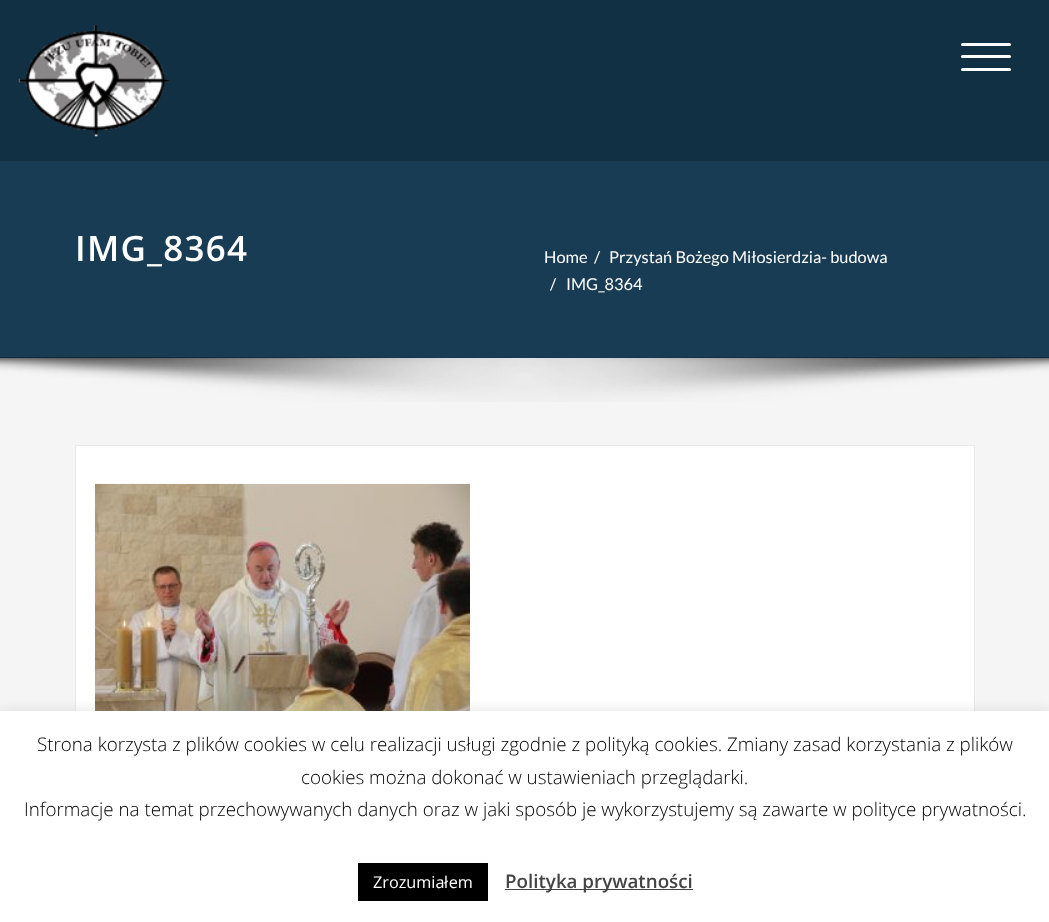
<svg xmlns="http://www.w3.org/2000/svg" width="1049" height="922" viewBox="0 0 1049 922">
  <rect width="100%" height="100%" fill="rgb(245,245,245)"/>
  <rect x="0" y="161" width="1049" height="197" fill="rgb(23,60,84)"/>
  <rect x="0" y="0" width="1049" height="161" fill="rgb(18,48,67)"/>
  <image x="18" y="25" width="151" height="112" href="pic1.png"/>
  <rect x="961" y="43" width="50" height="3" rx="1.5" fill="rgb(255,255,255)"/>
  <rect x="961" y="55" width="50" height="3" rx="1.5" fill="rgb(255,255,255)"/>
  <rect x="961" y="68" width="50" height="3" rx="1.5" fill="rgb(255,255,255)"/>
  <text x="75" y="261" font-family="Open Sans" font-size="35" font-weight="600" letter-spacing="1.25" fill="rgb(255,255,255)">IMG_8364</text>
  <g font-family="Lato" font-size="16.4" fill="rgb(255,255,255)">
    <text x="544" y="263">Home</text>
    <text x="594" y="263">/</text>
    <text x="609" y="263">Przystań Bożego Miłosierdzia- budowa</text>
    <text x="550" y="290">/</text>
    <text x="566" y="290">IMG_8364</text>
  </g>
  <image x="0" y="357" width="1049" height="45" href="pic2.png"/>
  <rect x="76" y="446" width="898" height="265" fill="rgb(255,255,255)"/>
  <rect x="75.5" y="445.5" width="899" height="320" fill="none" stroke="rgb(233,233,233)"/>
  <image x="95" y="483" width="375" height="228" href="pic3.png"/>
  <rect x="0" y="710" width="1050" height="211" fill="rgba(172,171,171,0.3)" filter="blur(6px)"/>
  <rect x="0" y="711" width="1049" height="211" fill="rgb(255,255,255)"/>
  <g font-family="Open Sans" font-size="18.75" font-weight="300" fill="rgb(0,0,0)">
    <text x="37" y="751">Strona korzysta z plików cookies w celu realizacji usługi zgodnie z polityką cookies. Zmiany zasad korzystania z plików</text>
    <text x="301" y="784">cookies można dokonać w ustawieniach przeglądarki.</text>
    <text x="24" y="816">Informacje na temat przechowywanych danych oraz w jaki sposób je wykorzystujemy są zawarte w polityce prywatności.</text>
  </g>
  <rect x="358" y="863" width="130" height="38" fill="rgb(0,0,0)"/>
  <text x="373" y="888" font-family="Open Sans" font-size="16.25" fill="rgb(255,255,255)">Zrozumia em</text>
  <text x="444" y="888" font-family="'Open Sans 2'" font-size="16.25" fill="rgb(255,255,255)">ł</text>
  <rect x="505" y="889" width="188" height="1" fill="rgb(68,68,68)"/>
  <text x="505" y="888" font-family="Open Sans" font-size="18.75" font-weight="600" fill="rgb(68,68,68)">Polityka prywatności</text>
</svg>
